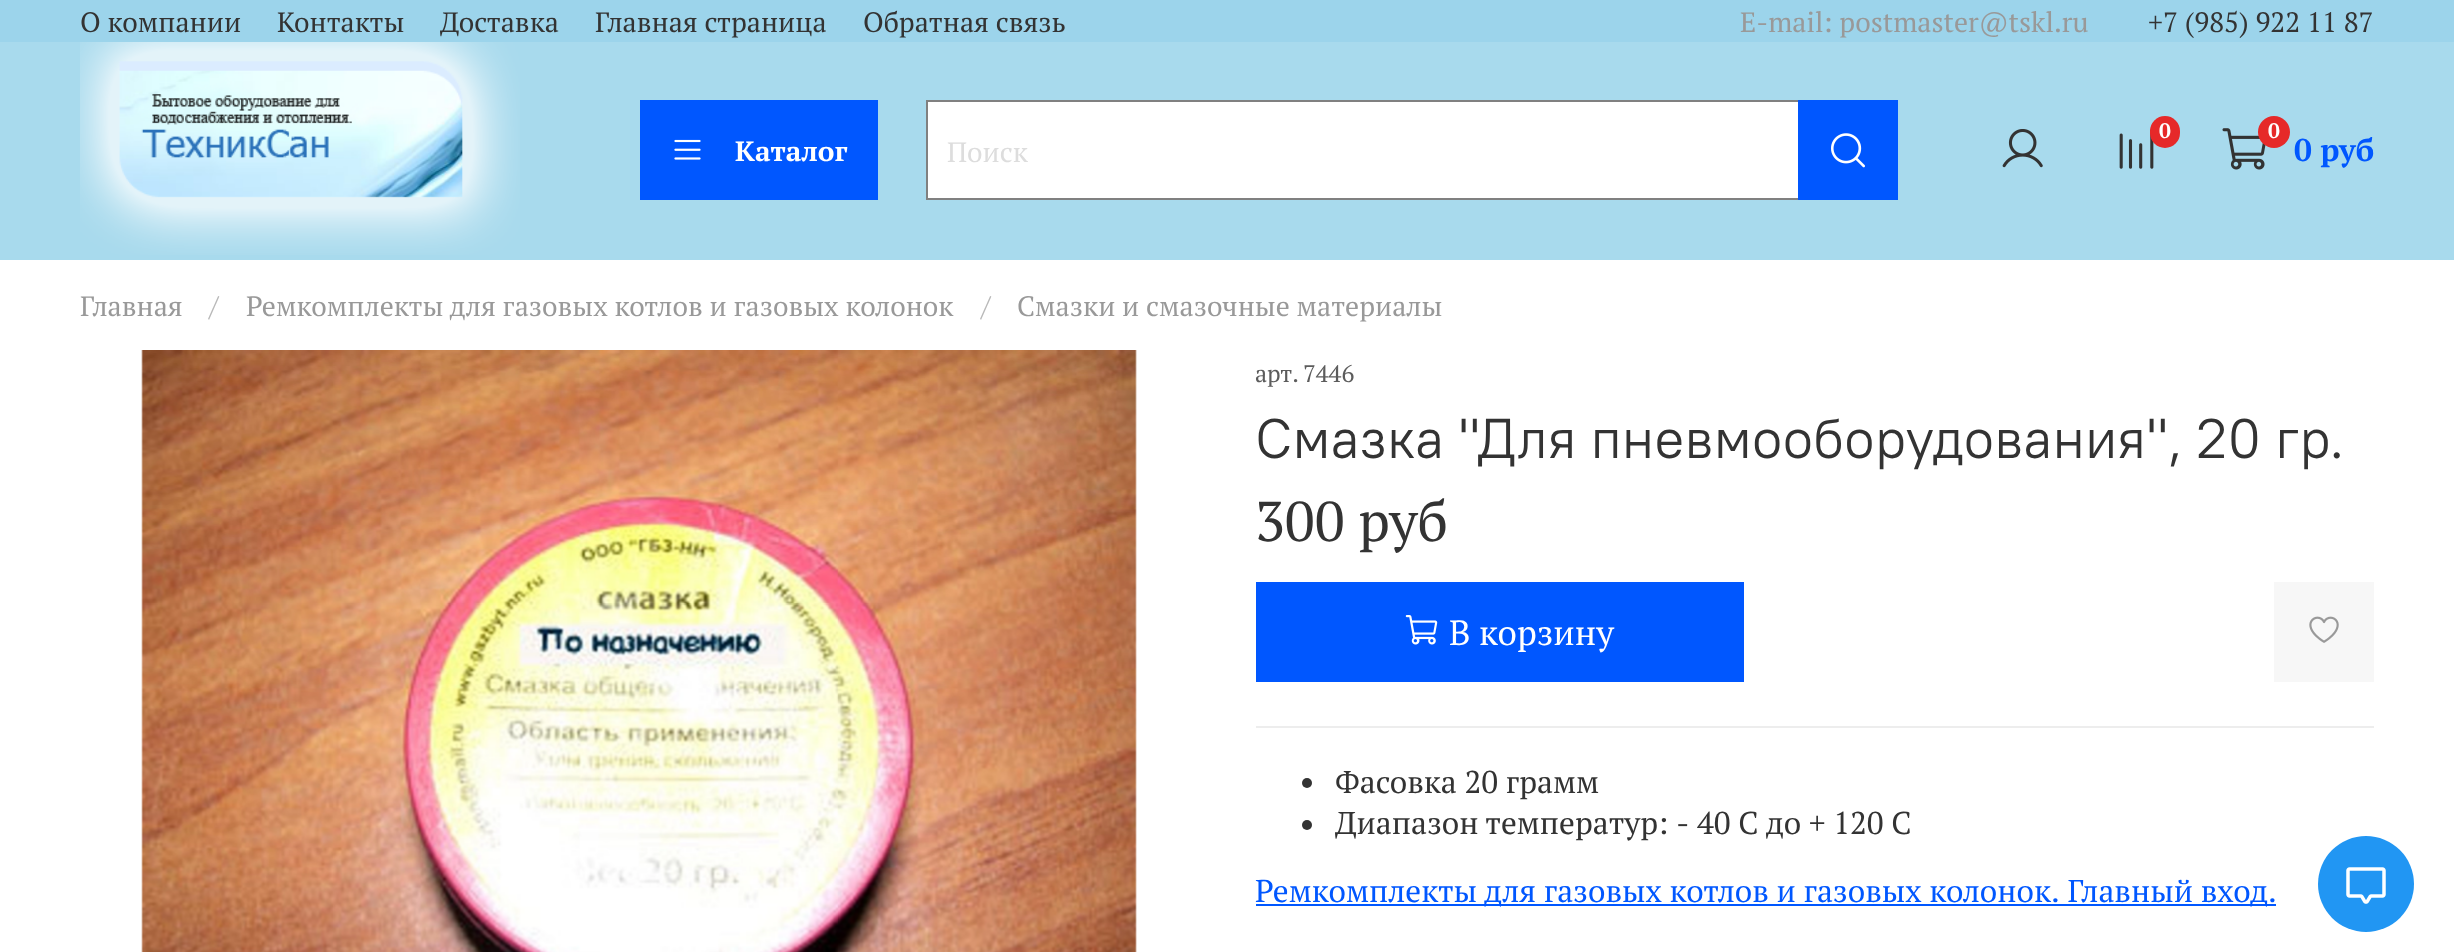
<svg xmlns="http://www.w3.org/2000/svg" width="2454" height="952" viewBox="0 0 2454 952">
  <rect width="100%" height="100%" fill="rgb(255,255,255)"/>
  <rect x="0" y="0" width="2454" height="42" fill="rgb(156,212,235)"/>
  <g font-family="PT Serif" font-size="28" fill="rgb(51,51,51)">
    <text x="80" y="32">О компании</text>
    <text x="277" y="32">Контакты</text>
    <text x="440" y="32">Доставка</text>
    <text x="595" y="32">Главная страница</text>
    <text x="863" y="32">Обратная связь</text>
  </g>
  <text x="1740" y="32" font-family="PT Serif" font-size="28" fill="rgb(153,153,153)">E-mail: postmaster@tskl.ru</text>
  <text x="2148" y="32" font-family="PT Serif" font-size="28" fill="rgb(51,51,51)">+7 (985) 922 11 87</text>
  <rect x="0" y="42" width="2454" height="218" fill="rgb(168,218,237)"/>
  <image x="80" y="42" width="440" height="213" href="pic1.png"/>
  <rect x="640" y="100" width="238" height="100" fill="rgb(0,87,255)"/>
  <image x="674" y="139" width="27" height="21" href="pic2.png"/>
  <text x="735" y="161" font-family="PT Serif" font-size="28" font-weight="bold" fill="rgb(255,255,255)">Каталог</text>
  <rect x="928" y="102" width="870" height="96" fill="rgb(255,255,255)"/>
  <rect x="926" y="100" width="872" height="2" fill="rgb(128,128,128)"/>
  <rect x="926" y="198" width="872" height="2" fill="rgb(128,128,128)"/>
  <rect x="926" y="100" width="2" height="100" fill="rgb(128,128,128)"/>
  <text x="947" y="162" font-family="PT Serif" font-size="28" fill="rgb(221,221,221)">Поиск</text>
  <rect x="1798" y="100" width="100" height="100" fill="rgb(0,87,255)"/>
  <image x="1831" y="133" width="34" height="35" href="pic3.png"/>
  <image x="2002" y="129" width="41" height="39" href="pic4.png"/>
  <image x="2119" y="129" width="35" height="40" href="pic5.png"/>
  <rect x="2150" y="116" width="30" height="32" rx="15" fill="rgb(230,41,41)"/>
  <text x="2159" y="138" font-family="PT Serif" font-size="21" font-weight="bold" fill="rgb(255,255,255)">0</text>
  <image x="2222" y="128" width="44" height="42" href="pic6.png"/>
  <circle cx="2274" cy="132" r="16" fill="rgb(230,41,41)"/>
  <text x="2268" y="138" font-family="PT Serif" font-size="21" font-weight="bold" fill="rgb(255,255,255)">0</text>
  <text x="2294" y="161" font-family="PT Serif" font-size="31.5" font-weight="bold" fill="rgb(0,87,255)">0 руб</text>
  <text x="80" y="316" font-family="PT Serif" font-size="28" fill="rgb(153,153,153)">Главная</text>
  <text x="209" y="316" font-family="PT Serif" font-size="28" fill="rgb(184,184,184)">/</text>
  <text x="246" y="316" font-family="PT Serif" font-size="28" fill="rgb(153,153,153)">Ремкомплекты для газовых котлов и газовых колонок</text>
  <text x="981" y="316" font-family="PT Serif" font-size="28" fill="rgb(184,184,184)">/</text>
  <text x="1017" y="316" font-family="PT Serif" font-size="28" fill="rgb(153,153,153)">Смазки и смазочные материалы</text>
  <image x="141" y="350" width="996" height="602" href="pic7.png"/>
  <g font-family="PT Serif" font-size="24" fill="rgb(92,92,92)">
    <text x="1255" y="382">арт.</text>
    <text x="1303" y="382">7446</text>
  </g>
  <text x="1255" y="458" font-family="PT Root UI" font-size="56" fill="rgb(51,51,51)">Смазка "Для пневмооборудования", 20 гр.</text>
  <text x="1255" y="541" font-family="PT Serif" font-size="56" fill="rgb(51,51,51)">300 руб</text>
  <rect x="1256" y="582" width="488" height="100" fill="rgb(0,87,255)"/>
  <image x="1405" y="615" width="33" height="30" href="pic8.png"/>
  <text x="1449" y="645" font-family="PT Serif" font-size="35" fill="rgb(255,255,255)">В корзину</text>
  <rect x="2274" y="582" width="100" height="100" fill="rgb(247,247,247)"/>
  <image x="2309" y="616" width="30" height="27" href="pic9.png"/>
  <rect x="1256" y="726" width="1118" height="2" fill="rgb(237,237,237)"/>
  <circle cx="1307" cy="783" r="5" fill="rgb(51,51,51)"/>
  <text x="1335" y="793" font-family="PT Serif" font-size="31.5" fill="rgb(51,51,51)">Фасовка 20 грамм</text>
  <circle cx="1307" cy="825" r="5" fill="rgb(51,51,51)"/>
  <text x="1335" y="834" font-family="PT Serif" font-size="31.5" fill="rgb(51,51,51)">Диапазон температур: - 40 С до + 120 С</text>
  <rect x="1256" y="904" width="1020" height="2" fill="rgb(0,87,255)"/>
  <text x="1255" y="902" font-family="PT Serif" font-size="31.5" fill="rgb(0,87,255)">Ремкомплекты для газовых котлов и газовых колонок. Главный вход.</text>
  <circle cx="2366" cy="884" r="48" fill="rgb(33,150,243)"/>
  <image x="2346" y="867" width="40" height="37" href="pic10.png"/>
</svg>
